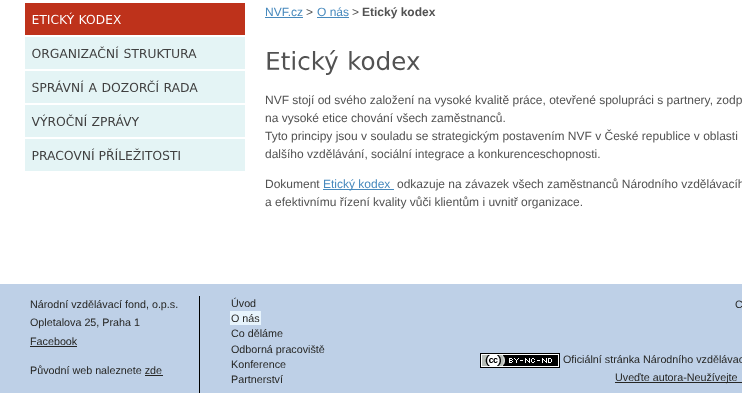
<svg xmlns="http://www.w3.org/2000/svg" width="742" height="393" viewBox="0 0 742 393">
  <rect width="100%" height="100%" fill="rgb(255,255,255)"/>
  <rect x="25" y="3" width="220" height="32" fill="rgb(190,50,27)"/>
  <image x="32" y="12" width="43" height="12" href="pic1.png"/>
  <image x="79" y="14" width="42" height="10" href="pic2.png"/>
  <rect x="25" y="37" width="220" height="32" fill="rgb(228,244,245)"/>
  <image x="32" y="46" width="87" height="12" href="pic3.png"/>
  <image x="124" y="48" width="73" height="10" href="pic4.png"/>
  <rect x="25" y="71" width="220" height="32" fill="rgb(228,244,245)"/>
  <image x="32" y="80" width="52" height="12" href="pic5.png"/>
  <image x="88" y="83" width="9" height="9" href="pic6.png"/>
  <image x="102" y="80" width="57" height="12" href="pic7.png"/>
  <image x="164" y="83" width="34" height="9" href="pic8.png"/>
  <rect x="25" y="105" width="220" height="32" fill="rgb(228,244,245)"/>
  <image x="31" y="114" width="56" height="12" href="pic9.png"/>
  <image x="92" y="114" width="47" height="12" href="pic10.png"/>
  <rect x="25" y="139" width="220" height="32" fill="rgb(228,244,245)"/>
  <image x="32" y="148" width="63" height="12" href="pic11.png"/>
  <image x="99" y="148" width="81" height="12" href="pic12.png"/>
  <text x="265" y="16" font-family="Liberation Sans" font-size="12" fill="rgb(71,137,189)">NVF.cz</text>
  <rect x="265" y="17" width="38" height="1" fill="rgb(71,137,189)"/>
  <text x="306" y="16" font-family="Liberation Sans" font-size="12" fill="rgb(82,82,82)">&gt;</text>
  <text x="317" y="16" font-family="Liberation Sans" font-size="12" fill="rgb(71,137,189)">O nás</text>
  <rect x="317" y="17" width="32" height="1" fill="rgb(71,137,189)"/>
  <text x="352" y="16" font-family="Liberation Sans" font-size="12" fill="rgb(82,82,82)">&gt;</text>
  <text x="362" y="16" font-family="Liberation Sans" font-size="12" font-weight="bold" fill="rgb(82,82,82)">Etický kodex</text>
  <image x="267" y="50" width="71" height="25" href="pic13.png"/>
  <image x="349" y="51" width="71" height="20" href="pic14.png"/>
  <g font-family="Liberation Sans" font-size="12" fill="rgb(82,82,82)">
    <text>
      <tspan x="265" y="104">NVF stojí od svého založení na vysoké kvalitě práce, otevřené spolupráci s partnery, zodp</tspan>
      <tspan x="265" y="122">na vysoké etice chování všech zaměstnanců.</tspan>
      <tspan x="265" y="140">Tyto principy jsou v souladu se strategickým postavením NVF v České republice v oblasti</tspan>
      <tspan x="265" y="158">dalšího vzdělávání, sociální integrace a konkurenceschopnosti.</tspan>
    </text>
    <text x="265" y="188">Dokument</text>
  </g>
  <rect x="323" y="189" width="71" height="1" fill="rgb(71,137,189)"/>
  <text x="323" y="188" font-family="Liberation Sans" font-size="12" fill="rgb(71,137,189)">Etický kodex</text>
  <g font-family="Liberation Sans" font-size="12" fill="rgb(82,82,82)">
    <text x="397" y="188">odkazuje na závazek všech zaměstnanců Národního vzdělávacíh</text>
    <text x="265" y="206">a efektivnímu řízení kvality vůči klientům i uvnitř organizace.</text>
  </g>
  <rect x="0" y="284" width="742" height="109" fill="rgb(190,208,231)"/>
  <g font-family="Liberation Sans" font-size="10.75" fill="rgb(38,38,36)">
    <text>
      <tspan x="30" y="308">Národní vzdělávací fond, o.p.s.</tspan>
      <tspan x="30" y="326">Opletalova 25, Praha 1</tspan>
      <tspan x="30" y="345">Facebook</tspan>
    </text>
  </g>
  <rect x="30" y="346" width="47" height="1" fill="rgb(38,38,36)"/>
  <text x="30" y="374" font-family="Liberation Sans" font-size="10.75" fill="rgb(38,38,36)">Původní web naleznete zde</text>
  <rect x="145" y="375" width="18" height="1" fill="rgb(38,38,36)"/>
  <rect x="199" y="296" width="1" height="97" fill="rgb(0,0,0)"/>
  <text x="231" y="307" font-family="Liberation Sans" font-size="10.75" fill="rgb(38,38,36)">Úvod</text>
  <rect x="230" y="311" width="31" height="14" fill="rgb(231,244,253)"/>
  <g font-family="Liberation Sans" font-size="10.75" fill="rgb(38,38,36)">
    <text>
      <tspan x="231" y="322">O nás</tspan>
      <tspan x="231" y="337">Co děláme</tspan>
      <tspan x="231" y="353">Odborná pracoviště</tspan>
      <tspan x="231" y="368">Konference</tspan>
      <tspan x="231" y="383">Partnerství</tspan>
    </text>
    <text x="735" y="308">C</text>
  </g>
  <image x="480" y="353" width="80" height="15" href="pic15.png"/>
  <text x="563" y="363" font-family="Liberation Sans" font-size="10.75" fill="rgb(38,38,36)">Oficiální stránka Národního vzdělávac</text>
  <rect x="615" y="382" width="127" height="1" fill="rgb(38,38,36)"/>
  <text x="615" y="381" font-family="Liberation Sans" font-size="10.75" fill="rgb(38,38,36)">Uveďte autora-Neužívejte</text>
</svg>
